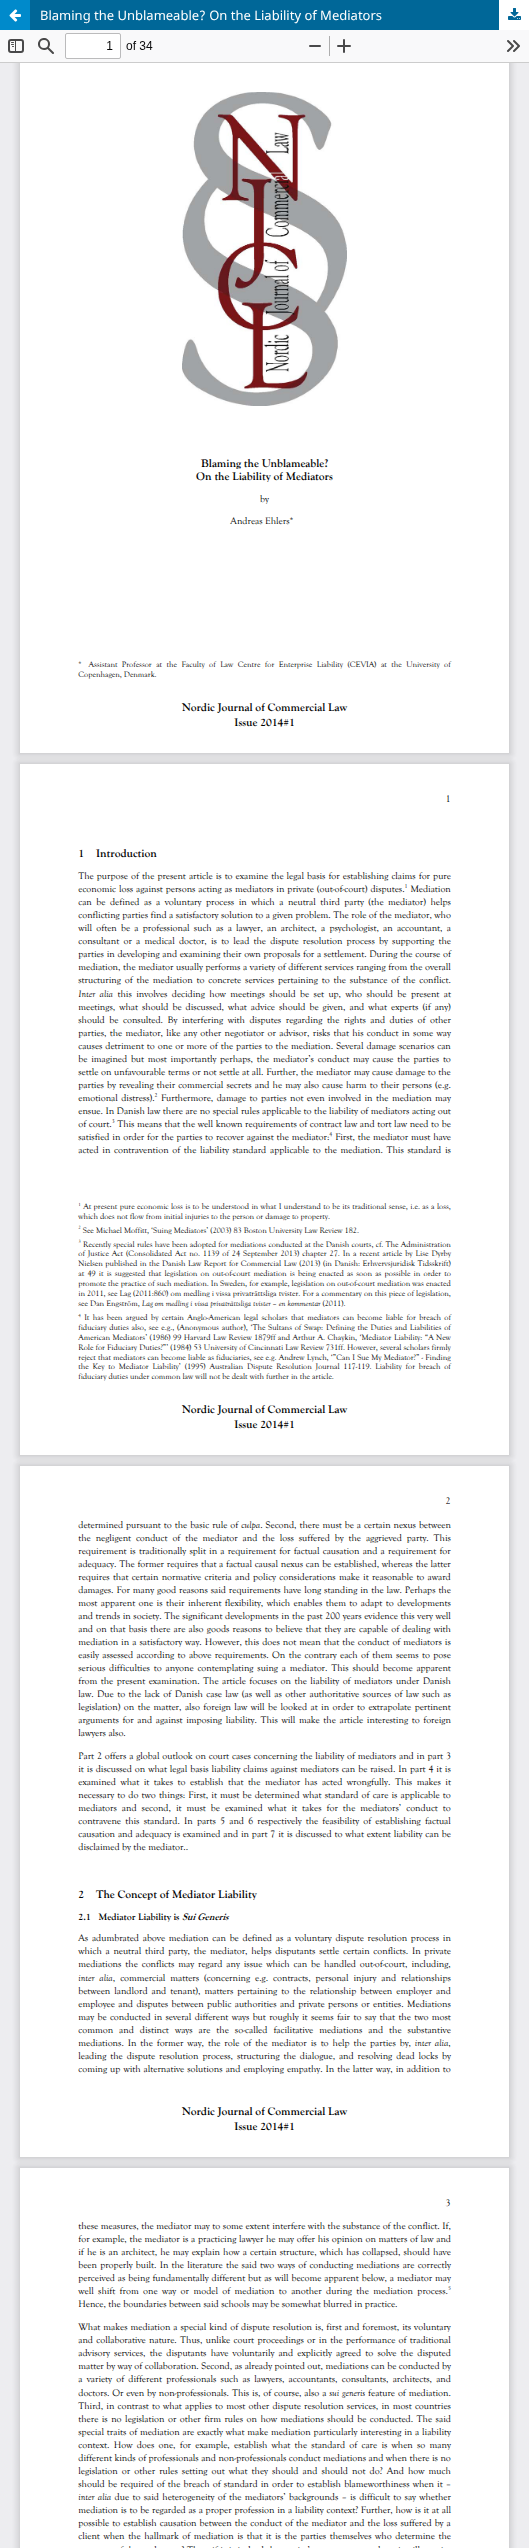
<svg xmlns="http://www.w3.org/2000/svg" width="529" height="2548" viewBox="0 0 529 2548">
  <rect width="100%" height="100%" fill="rgb(255,255,255)"/>
  <rect x="30" y="0" width="469" height="30" fill="rgb(0,103,152)"/>
  <rect x="0" y="0" width="30" height="30" fill="rgb(0,138,203)"/>
  <image x="9" y="9" width="12" height="13" href="pic1.png"/>
  <text x="40" y="20" font-family="Noto Sans" font-size="13" fill="rgb(255,255,255)">Blaming the Unblameable? On the Liability of Mediators</text>
  <image x="508" y="8" width="13" height="12" href="pic2.png"/>
  <image x="0" y="30" width="529" height="2518" href="pic3.png"/>
</svg>
